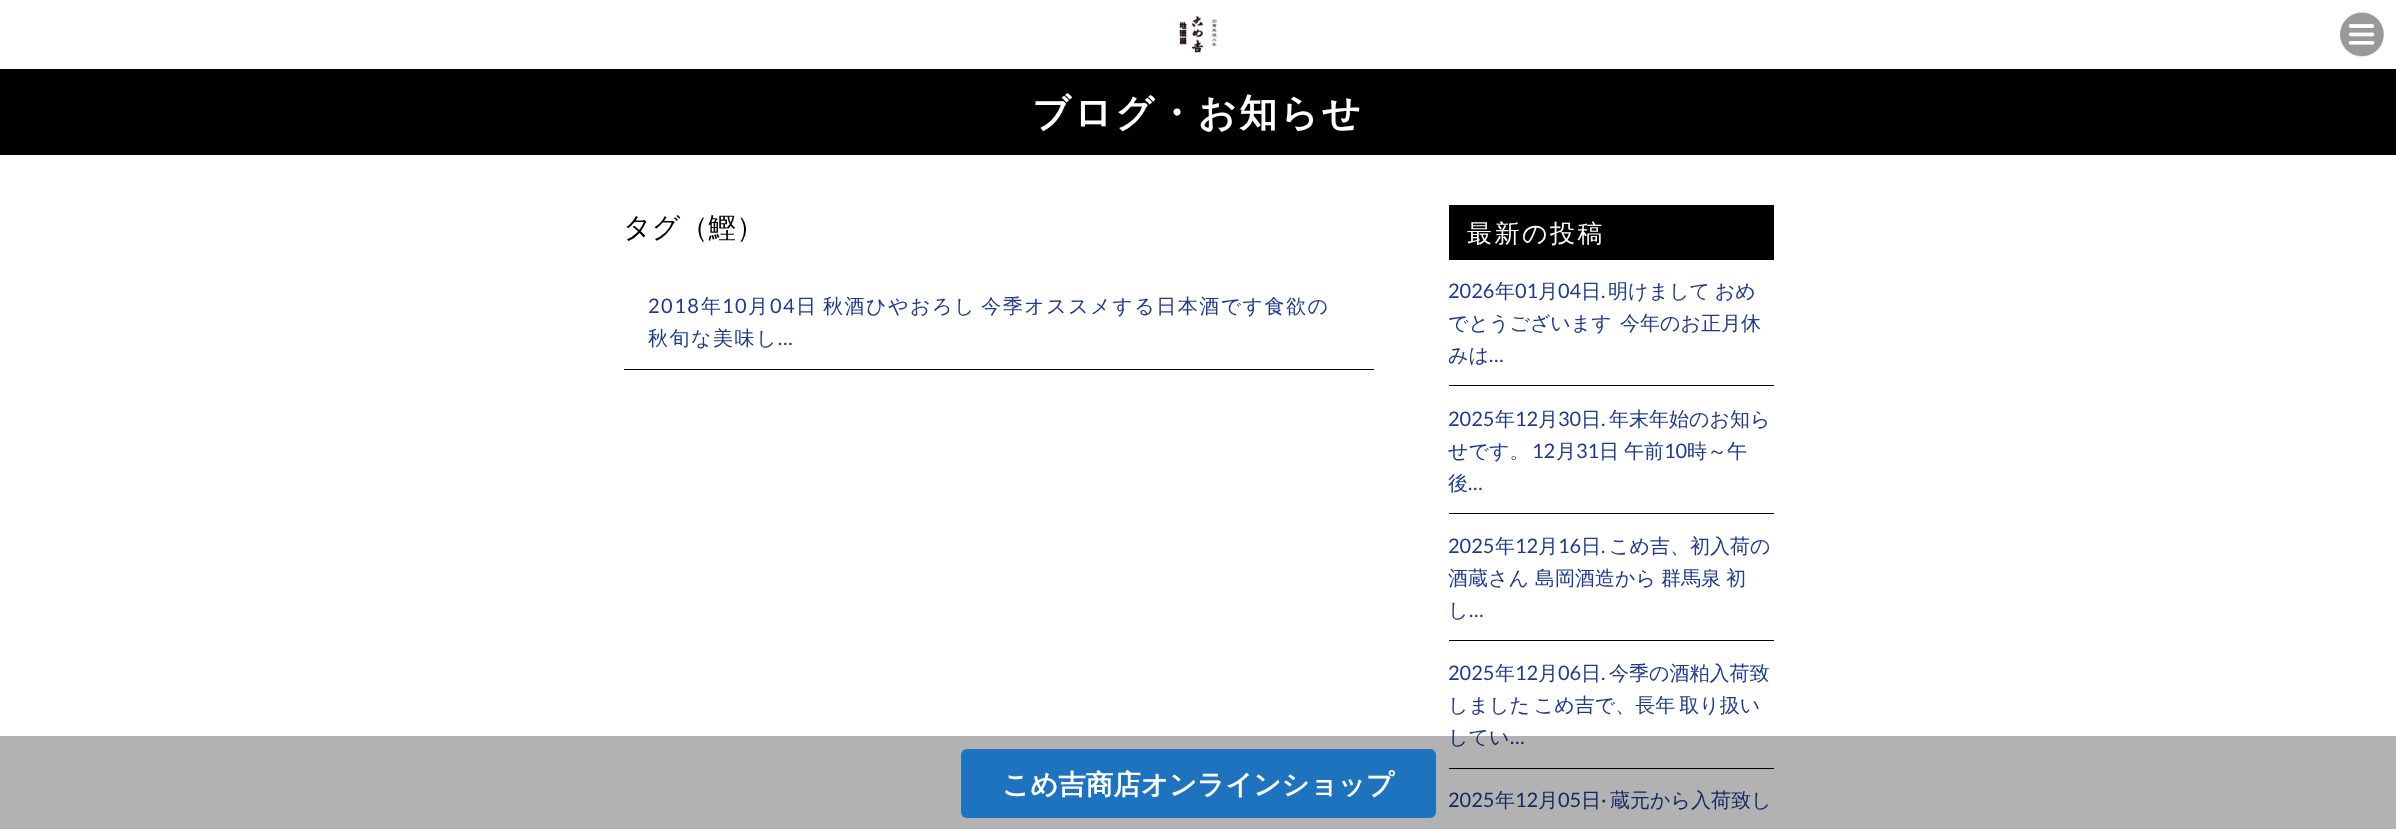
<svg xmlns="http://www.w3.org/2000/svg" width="2396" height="829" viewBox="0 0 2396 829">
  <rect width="100%" height="100%" fill="rgb(255,255,255)"/>
  <image x="1179" y="15" width="38" height="38" href="pic1.png"/>
  <image x="2340" y="12" width="44" height="45" href="pic2.png"/>
  <rect x="0" y="69" width="2396" height="86" fill="rgb(0,0,0)"/>
  <text x="1032" y="126" font-family="WenQuanYi Zen Hei" font-size="38" font-weight="bold" letter-spacing="2.75" fill="rgb(255,255,255)">ブログ・お知らせ</text>
  <text x="623" y="237" font-family="WenQuanYi Zen Hei" font-size="28" font-weight="500" fill="rgb(0,0,0)">タグ（鰹）</text>
  <rect x="624" y="369" width="750" height="1" fill="rgb(0,0,0)"/>
  <text x="648" y="313" font-family="Lato" font-size="20" letter-spacing="1.5" fill="rgb(29,58,142)">2018</text>
  <text x="701" y="313" font-family="WenQuanYi Zen Hei" font-size="20" font-weight="500" letter-spacing="1.5" fill="rgb(29,58,142)">年</text>
  <text x="722" y="313" font-family="Lato" font-size="20" letter-spacing="1.5" fill="rgb(29,58,142)">10</text>
  <text x="748" y="313" font-family="WenQuanYi Zen Hei" font-size="20" font-weight="500" letter-spacing="1.5" fill="rgb(29,58,142)">月</text>
  <text x="770" y="313" font-family="Lato" font-size="20" letter-spacing="1.5" fill="rgb(29,58,142)">04</text>
  <g font-family="WenQuanYi Zen Hei" font-size="20" font-weight="500" letter-spacing="1.5" fill="rgb(29,58,142)">
    <text x="796" y="313">日</text>
    <text x="823" y="313" word-spacing="-2">秋酒ひやおろし 今季オススメする日本酒です食欲の</text>
    <text x="648" y="345">秋旬な美味し</text>
  </g>
  <text x="778" y="345" font-family="Lato" font-size="20" letter-spacing="1.5" fill="rgb(29,58,142)">…</text>
  <rect x="1449" y="205" width="325" height="55" fill="rgb(0,0,0)"/>
  <text x="1467" y="242" font-family="WenQuanYi Zen Hei" font-size="25" font-weight="500" letter-spacing="2.5" fill="rgb(255,255,255)">最新の投稿</text>
  <rect x="1449" y="385" width="325" height="1" fill="rgb(0,0,0)"/>
  <text x="1448" y="298" font-family="Lato" font-size="20" fill="rgb(29,58,142)">2026</text>
  <text x="1495" y="298" font-family="WenQuanYi Zen Hei" font-size="20" font-weight="500" fill="rgb(29,58,142)">年</text>
  <text x="1515" y="298" font-family="Lato" font-size="20" fill="rgb(29,58,142)">01</text>
  <text x="1538" y="298" font-family="WenQuanYi Zen Hei" font-size="20" font-weight="500" fill="rgb(29,58,142)">月</text>
  <text x="1558" y="298" font-family="Lato" font-size="20" fill="rgb(29,58,142)">04</text>
  <text x="1581" y="298" font-family="WenQuanYi Zen Hei" font-size="20" font-weight="500" fill="rgb(29,58,142)">日</text>
  <text x="1601" y="298" font-family="Lato" font-size="20" fill="rgb(29,58,142)">.</text>
  <g font-family="WenQuanYi Zen Hei" font-size="20" font-weight="500" fill="rgb(29,58,142)">
    <text x="1608" y="298" word-spacing="-1">明けまして おめ</text>
    <text x="1448" y="330">でとうございます</text>
    <text x="1620" y="330">今年のお正月休</text>
    <text x="1448" y="362">みは</text>
  </g>
  <text x="1489" y="362" font-family="Lato" font-size="20" fill="rgb(29,58,142)">…</text>
  <rect x="1449" y="513" width="325" height="1" fill="rgb(0,0,0)"/>
  <text x="1448" y="426" font-family="Lato" font-size="20" fill="rgb(29,58,142)">2025</text>
  <text x="1495" y="426" font-family="WenQuanYi Zen Hei" font-size="20" font-weight="500" fill="rgb(29,58,142)">年</text>
  <text x="1515" y="426" font-family="Lato" font-size="20" fill="rgb(29,58,142)">12</text>
  <text x="1538" y="426" font-family="WenQuanYi Zen Hei" font-size="20" font-weight="500" fill="rgb(29,58,142)">月</text>
  <text x="1558" y="426" font-family="Lato" font-size="20" fill="rgb(29,58,142)">30</text>
  <text x="1581" y="426" font-family="WenQuanYi Zen Hei" font-size="20" font-weight="500" fill="rgb(29,58,142)">日</text>
  <text x="1601" y="426" font-family="Lato" font-size="20" fill="rgb(29,58,142)">.</text>
  <g font-family="WenQuanYi Zen Hei" font-size="20" font-weight="500" fill="rgb(29,58,142)">
    <text x="1609" y="426">年末年始のお知ら</text>
    <text x="1448" y="458">せです。</text>
  </g>
  <text x="1532" y="458" font-family="Lato" font-size="20" fill="rgb(29,58,142)">12</text>
  <text x="1556" y="458" font-family="WenQuanYi Zen Hei" font-size="20" font-weight="500" fill="rgb(29,58,142)">月</text>
  <text x="1576" y="458" font-family="Lato" font-size="20" fill="rgb(29,58,142)">31</text>
  <text x="1599" y="458" word-spacing="-1" font-family="WenQuanYi Zen Hei" font-size="20" font-weight="500" fill="rgb(29,58,142)">日 午前</text>
  <text x="1664" y="458" font-family="Lato" font-size="20" fill="rgb(29,58,142)">10</text>
  <g font-family="WenQuanYi Zen Hei" font-size="20" font-weight="500" fill="rgb(29,58,142)">
    <text x="1687" y="458">時～午</text>
    <text x="1448" y="490">後</text>
  </g>
  <text x="1468" y="490" font-family="Lato" font-size="20" fill="rgb(29,58,142)">…</text>
  <rect x="1449" y="640" width="325" height="1" fill="rgb(0,0,0)"/>
  <text x="1448" y="553" font-family="Lato" font-size="20" fill="rgb(29,58,142)">2025</text>
  <text x="1495" y="553" font-family="WenQuanYi Zen Hei" font-size="20" font-weight="500" fill="rgb(29,58,142)">年</text>
  <text x="1515" y="553" font-family="Lato" font-size="20" fill="rgb(29,58,142)">12</text>
  <text x="1538" y="553" font-family="WenQuanYi Zen Hei" font-size="20" font-weight="500" fill="rgb(29,58,142)">月</text>
  <text x="1558" y="553" font-family="Lato" font-size="20" fill="rgb(29,58,142)">16</text>
  <text x="1581" y="553" font-family="WenQuanYi Zen Hei" font-size="20" font-weight="500" fill="rgb(29,58,142)">日</text>
  <text x="1601" y="553" font-family="Lato" font-size="20" fill="rgb(29,58,142)">.</text>
  <g font-family="WenQuanYi Zen Hei" font-size="20" font-weight="500" fill="rgb(29,58,142)">
    <text x="1609" y="553">こめ吉、初入荷の</text>
    <text x="1448" y="585">酒蔵さん</text>
    <text x="1535" y="585" word-spacing="-1">島岡酒造から 群馬泉 初</text>
    <text x="1448" y="617">し</text>
  </g>
  <text x="1469" y="617" font-family="Lato" font-size="20" fill="rgb(29,58,142)">…</text>
  <rect x="1449" y="768" width="325" height="1" fill="rgb(0,0,0)"/>
  <text x="1448" y="680" font-family="Lato" font-size="20" fill="rgb(29,58,142)">2025</text>
  <text x="1495" y="680" font-family="WenQuanYi Zen Hei" font-size="20" font-weight="500" fill="rgb(29,58,142)">年</text>
  <text x="1515" y="680" font-family="Lato" font-size="20" fill="rgb(29,58,142)">12</text>
  <text x="1538" y="680" font-family="WenQuanYi Zen Hei" font-size="20" font-weight="500" fill="rgb(29,58,142)">月</text>
  <text x="1558" y="680" font-family="Lato" font-size="20" fill="rgb(29,58,142)">06</text>
  <text x="1581" y="680" font-family="WenQuanYi Zen Hei" font-size="20" font-weight="500" fill="rgb(29,58,142)">日</text>
  <text x="1601" y="680" font-family="Lato" font-size="20" fill="rgb(29,58,142)">.</text>
  <g font-family="WenQuanYi Zen Hei" font-size="20" font-weight="500" fill="rgb(29,58,142)">
    <text x="1609" y="680">今季の酒粕入荷致</text>
    <text>
      <tspan x="1448" y="712" word-spacing="-2">しました こめ吉で、長年 取り扱い</tspan>
      <tspan x="1448" y="744">してい</tspan>
    </text>
  </g>
  <g font-family="Lato" font-size="20" fill="rgb(29,58,142)">
    <text x="1510" y="744">…</text>
    <text x="1448" y="807">2025</text>
  </g>
  <text x="1495" y="807" font-family="WenQuanYi Zen Hei" font-size="20" font-weight="500" fill="rgb(29,58,142)">年</text>
  <text x="1515" y="807" font-family="Lato" font-size="20" fill="rgb(29,58,142)">12</text>
  <text x="1538" y="807" font-family="WenQuanYi Zen Hei" font-size="20" font-weight="500" fill="rgb(29,58,142)">月</text>
  <text x="1558" y="807" font-family="Lato" font-size="20" fill="rgb(29,58,142)">05</text>
  <text x="1581" y="807" font-family="WenQuanYi Zen Hei" font-size="20" font-weight="500" fill="rgb(29,58,142)">日</text>
  <text x="1601" y="807" font-family="Lato" font-size="20" fill="rgb(29,58,142)">·</text>
  <text x="1610" y="807" font-family="WenQuanYi Zen Hei" font-size="20" font-weight="500" fill="rgb(29,58,142)">蔵元から入荷致し</text>
  <rect x="0" y="736" width="2396" height="93" fill="rgba(0,0,0,0.3)"/>
  <rect x="961" y="749" width="475" height="69" rx="6" fill="rgb(30,115,190)"/>
  <text x="1002" y="794" font-family="WenQuanYi Zen Hei" font-size="27.5" font-weight="bold" fill="rgb(255,255,255)">こめ吉商店オンラインショップ</text>
</svg>
